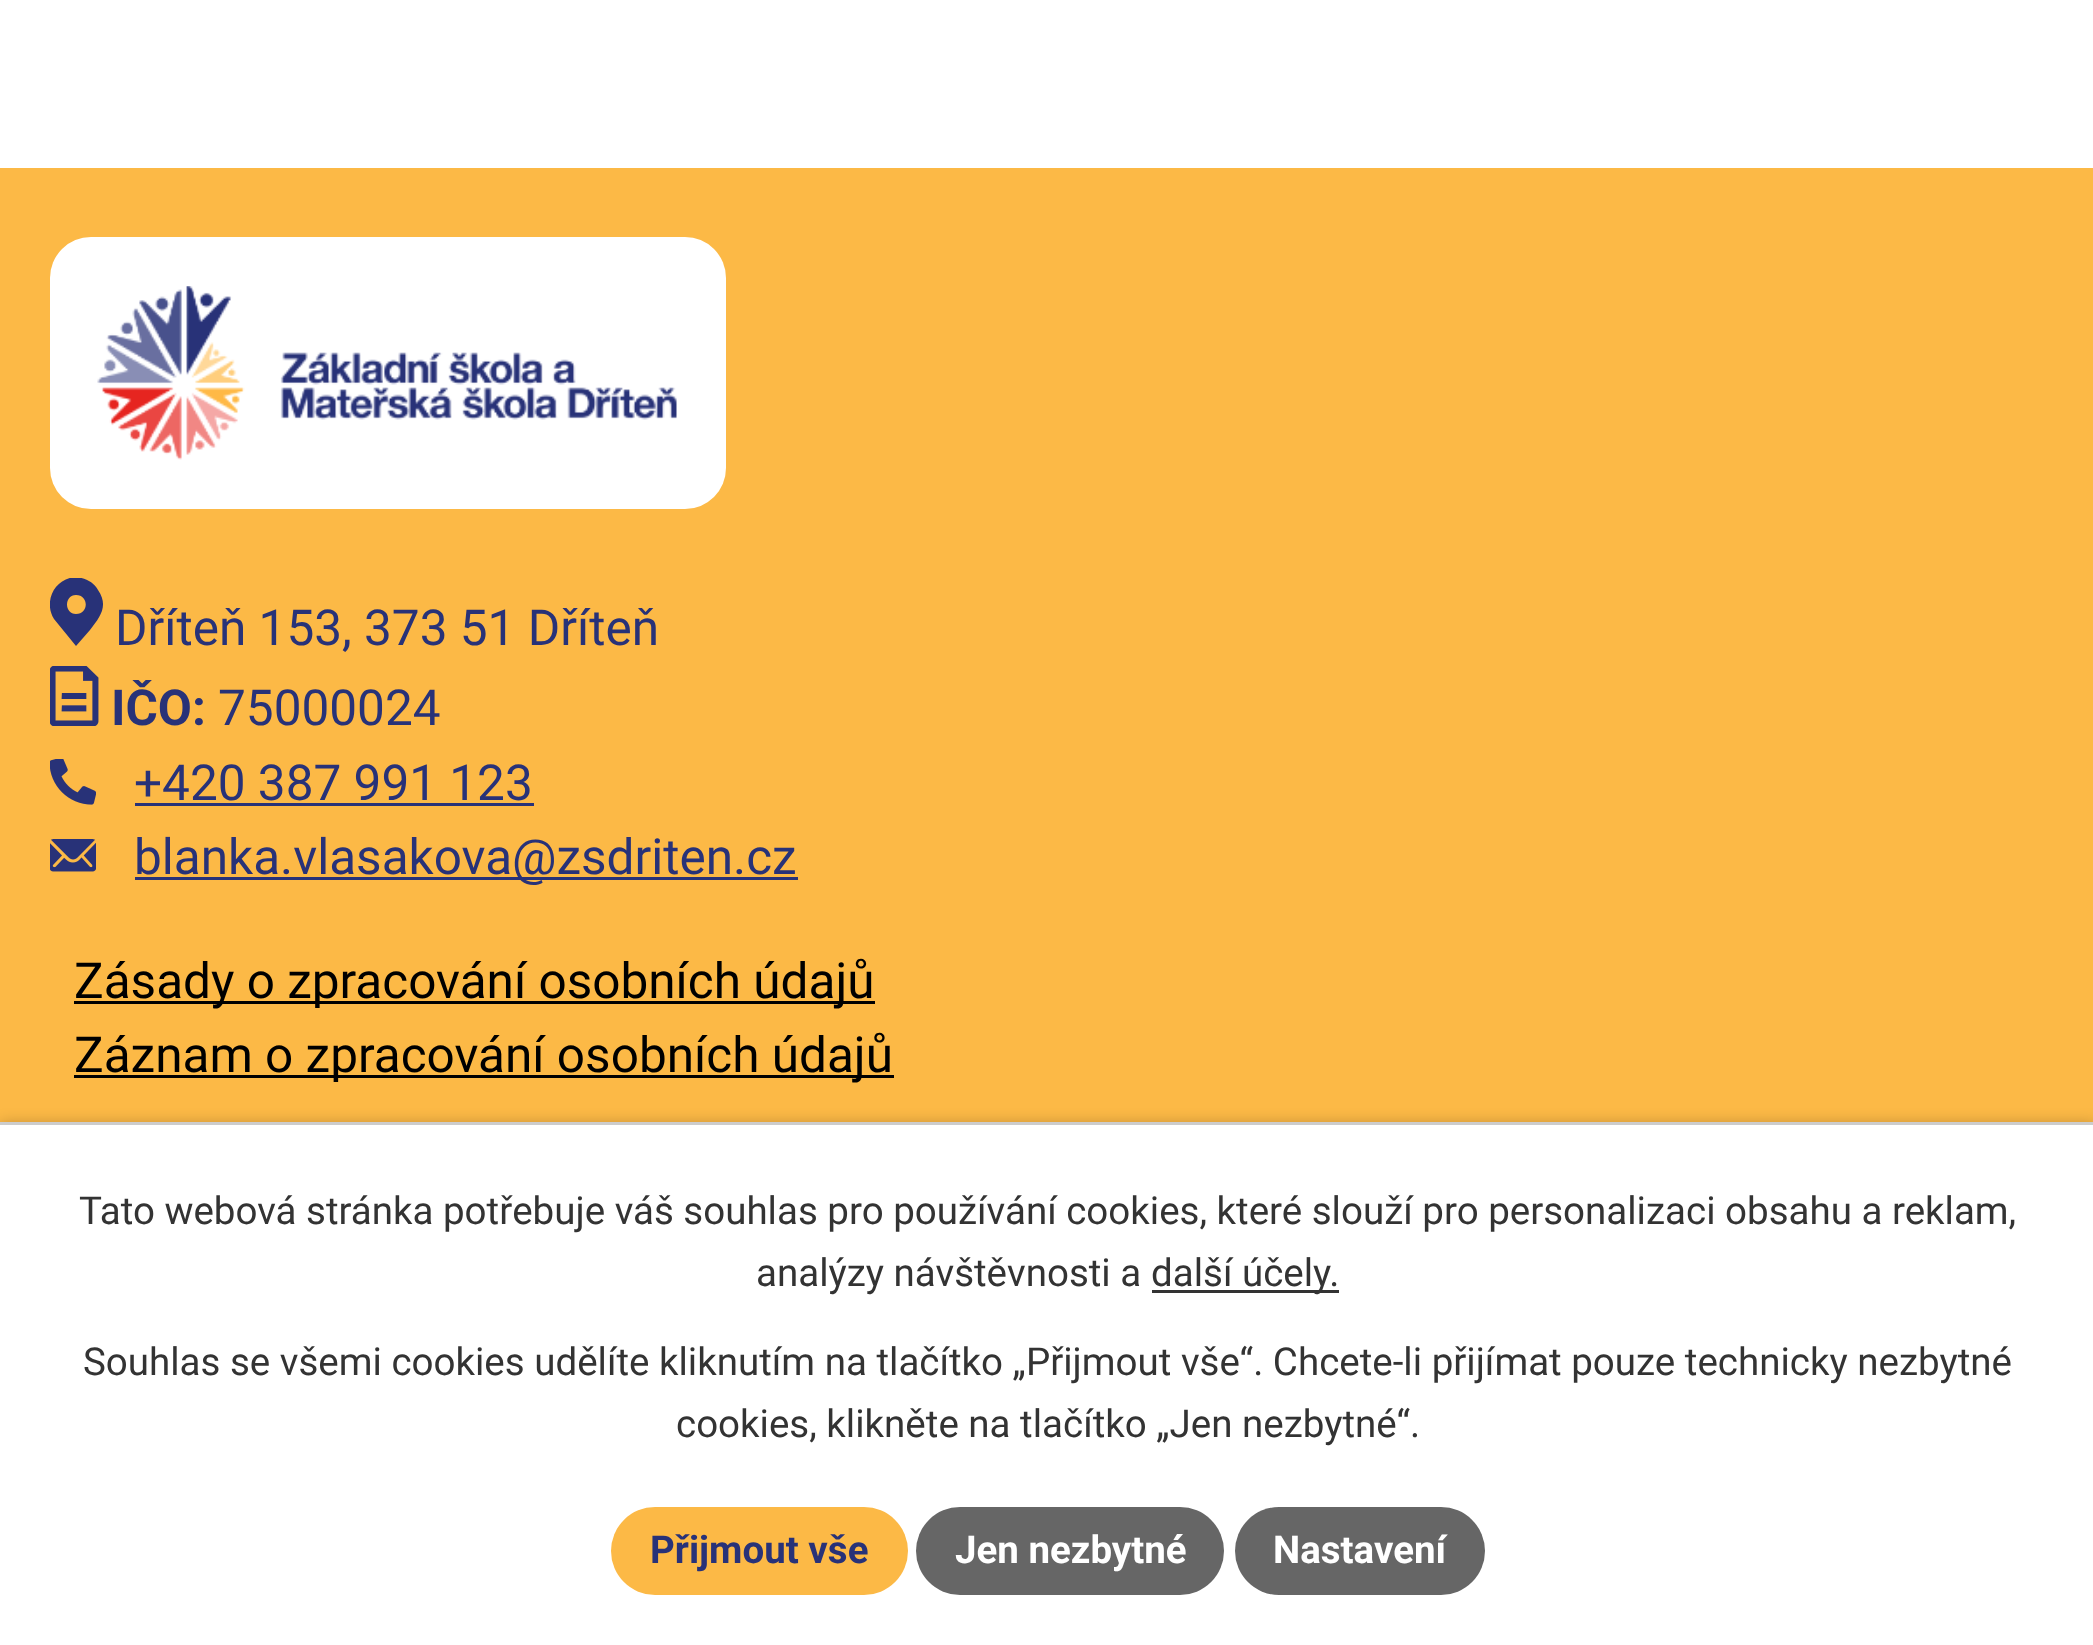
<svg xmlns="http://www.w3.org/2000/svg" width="2093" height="1645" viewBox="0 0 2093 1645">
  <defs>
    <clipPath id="clip1"><rect x="50" y="578" width="55" height="68"/></clipPath>
  </defs>
  <rect width="100%" height="100%" fill="rgb(255,255,255)"/>
  <rect x="0" y="168" width="2093" height="954" fill="rgb(252,185,70)"/>
  <rect x="50" y="237" width="676" height="272" rx="41" fill="rgb(255,255,255)"/>
  <image x="97" y="286" width="580" height="174" href="pic1.png"/>
  <g clip-path="url(#clip1)">
    <path d="M76 577C55 578 43 601 54 619L76 646L90 630C100 617 109 606 98 590C94 582 85 578 76 577M76 614C64 614 64 595 76 595C89 595 89 614 76 614" fill="rgb(40,50,120)"/>
  </g>
  <text x="115" y="645" font-family="Roboto" font-size="49.5" fill="rgb(40,50,120)">Dříteň 153, 373 51 Dříteň</text>
  <image x="50" y="666" width="49" height="60" href="pic2.png"/>
  <text x="111" y="725" font-family="Roboto" font-size="49.5" font-weight="bold" fill="rgb(40,50,120)">IČO:</text>
  <text x="218" y="725" font-family="Roboto" font-size="49.5" fill="rgb(40,50,120)">75000024</text>
  <image x="50" y="759" width="46" height="46" href="pic3.png"/>
  <text x="134" y="800" font-family="Roboto" font-size="49.5" fill="rgb(40,50,120)">+420 387 991 123</text>
  <rect x="135" y="803" width="399" height="3" fill="rgb(40,50,120)"/>
  <image x="50" y="839" width="46" height="33" href="pic4.png"/>
  <rect x="135" y="877" width="663" height="3" fill="rgb(40,50,120)"/>
  <text x="134" y="874" font-family="Roboto" font-size="49.5" fill="rgb(40,50,120)">blanka.vlasakova@zsdriten.cz</text>
  <rect x="74" y="1001" width="801" height="3" fill="rgb(0,0,0)"/>
  <text x="74" y="998" font-family="Roboto" font-size="49.5" fill="rgb(0,0,0)">Zásady o zpracování osobních údajů</text>
  <rect x="74" y="1075" width="820" height="3" fill="rgb(0,0,0)"/>
  <text x="74" y="1072" font-family="Roboto" font-size="49.5" fill="rgb(0,0,0)">Záznam o zpracování osobních údajů</text>
  <rect x="0" y="1122" width="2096" height="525" fill="rgba(0,0,0,0.2)" filter="blur(7px)"/>
  <rect x="0" y="1125" width="2093" height="520" fill="rgb(255,255,255)"/>
  <rect x="0" y="1122" width="2093" height="3" fill="rgb(204,204,204)"/>
  <g font-family="Roboto" font-size="38.5" fill="rgb(51,51,51)">
    <text x="79" y="1224">Tato webová stránka potřebuje váš souhlas pro používání cookies, které slouží pro personalizaci obsahu a reklam,</text>
    <text x="756" y="1286">analýzy návštěvnosti a</text>
  </g>
  <rect x="1152" y="1290" width="187" height="3" fill="rgb(51,51,51)"/>
  <g font-family="Roboto" font-size="38.5" fill="rgb(51,51,51)">
    <text x="1151" y="1286">další účely.</text>
    <text x="83" y="1375">Souhlas se všemi cookies udělíte kliknutím na tlačítko „Přijmout vše“. Chcete-li přijímat pouze technicky nezbytné</text>
    <text x="676" y="1437">cookies, klikněte na tlačítko „Jen nezbytné“.</text>
  </g>
  <rect x="611" y="1507" width="297" height="88" rx="44" fill="rgb(252,185,70)"/>
  <text x="650" y="1563" font-family="Roboto" font-size="38.5" font-weight="bold" fill="rgb(40,50,120)">Přijmout vše</text>
  <rect x="916" y="1507" width="308" height="88" rx="44" fill="rgb(102,102,102)"/>
  <text x="955" y="1563" font-family="Roboto" font-size="38.5" font-weight="bold" fill="rgb(255,255,255)">Jen nezbytné</text>
  <rect x="1235" y="1507" width="250" height="88" rx="44" fill="rgb(102,102,102)"/>
  <text x="1273" y="1563" font-family="Roboto" font-size="38.5" font-weight="bold" fill="rgb(255,255,255)">Nastavení</text>
</svg>
